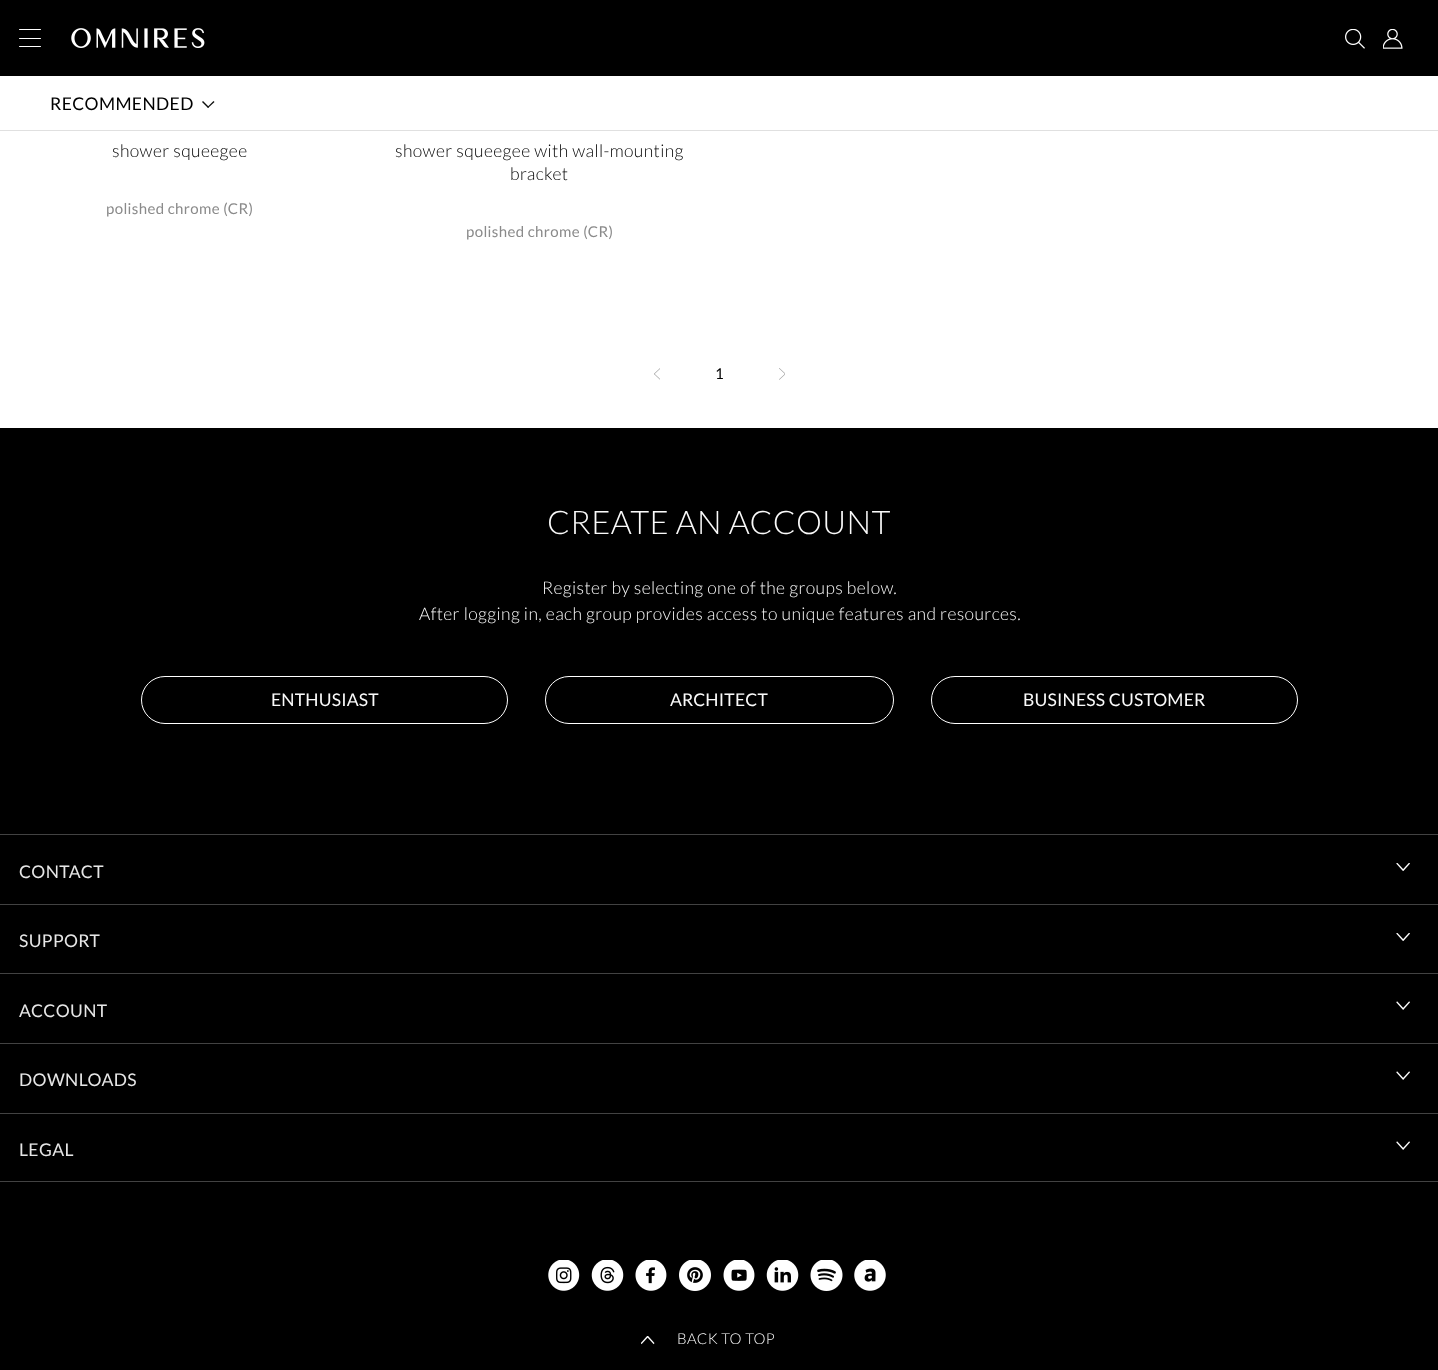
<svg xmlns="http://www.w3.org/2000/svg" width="1438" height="1370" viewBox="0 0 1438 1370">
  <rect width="100%" height="100%" fill="rgb(255,255,255)"/>
  <rect x="0" y="0" width="1438" height="76" fill="rgb(0,0,0)"/>
  <rect x="19" y="29" width="22" height="1" rx="0.5" fill="rgb(255,255,255)"/>
  <rect x="19" y="38" width="22" height="1" rx="0.5" fill="rgb(255,255,255)"/>
  <rect x="19" y="46" width="22" height="1" rx="0.5" fill="rgb(255,255,255)"/>
  <image x="71" y="28" width="134" height="20" href="pic1.png"/>
  <image x="1345" y="29" width="20" height="20" href="pic2.png"/>
  <image x="1383" y="29" width="20" height="20" href="pic3.png"/>
  <rect x="0" y="130" width="1438" height="1" fill="rgb(224,224,224)"/>
  <text x="50" y="110" font-family="Lato" font-size="17.5" letter-spacing="0.38" fill="rgb(0,0,0)">RECOMMENDED</text>
  <path d="M213.5 101L214.5 102L208 108L207.5 107Z" fill="rgb(13,14,13)"/>
  <path d="M203 101L209 107L208 108L202 102Z" fill="rgb(13,14,13)"/>
  <text x="112" y="157" font-family="Lato" font-size="17.5" font-weight="300" letter-spacing="0.38" fill="rgb(0,0,0)">shower squeegee</text>
  <text x="106" y="214" font-family="Lato" font-size="15" letter-spacing="0.38" fill="rgb(138,138,138)">polished chrome (CR)</text>
  <g font-family="Lato" font-size="17.5" font-weight="300" letter-spacing="0.38" fill="rgb(0,0,0)">
    <text x="395" y="157">shower squeegee with wall-mounting</text>
    <text x="510" y="180">bracket</text>
  </g>
  <text x="466" y="237" font-family="Lato" font-size="15" letter-spacing="0.38" fill="rgb(138,138,138)">polished chrome (CR)</text>
  <image x="654" y="368" width="6" height="12" href="pic4.png"/>
  <text x="715" y="379" font-family="Lato" font-size="15" letter-spacing="0.38" fill="rgb(0,0,0)">1</text>
  <image x="779" y="368" width="6" height="12" href="pic5.png"/>
  <rect x="0" y="428" width="1438" height="942" fill="rgb(0,0,0)"/>
  <text x="547" y="534" font-family="Lato" font-size="32.5" font-weight="300" letter-spacing="0.38" fill="rgb(250,250,250)">CREATE AN ACCOUNT</text>
  <g font-family="Lato" font-size="17.5" font-weight="300" letter-spacing="0.38" fill="rgb(250,250,250)">
    <text x="542" y="594">Register by selecting one of the groups below.</text>
    <text x="419" y="620">After logging in, each group provides access to unique features and resources.</text>
  </g>
  <rect x="141.5" y="676.5" width="366" height="47" rx="23.5" fill="none" stroke="rgb(255,255,255)"/>
  <text x="271" y="706" font-family="Lato" font-size="17.5" letter-spacing="0.2" fill="rgb(250,250,250)">ENTHUSIAST</text>
  <rect x="545.5" y="676.5" width="348" height="47" rx="23.5" fill="none" stroke="rgb(255,255,255)"/>
  <text x="670" y="706" font-family="Lato" font-size="17.5" letter-spacing="0.2" fill="rgb(250,250,250)">ARCHITECT</text>
  <rect x="931.5" y="676.5" width="366" height="47" rx="23.5" fill="none" stroke="rgb(255,255,255)"/>
  <text x="1023" y="706" font-family="Lato" font-size="17.5" letter-spacing="0.2" fill="rgb(250,250,250)">BUSINESS CUSTOMER</text>
  <rect x="0" y="834" width="1438" height="1" fill="rgb(66,66,66)"/>
  <text x="19" y="878" font-family="Lato" font-size="17.5" letter-spacing="0.38" fill="rgb(230,230,230)">CONTACT</text>
  <image x="1396" y="863" width="14" height="8" href="pic6.png"/>
  <rect x="0" y="904" width="1438" height="1" fill="rgb(66,66,66)"/>
  <text x="19" y="947" font-family="Lato" font-size="17.5" letter-spacing="0.38" fill="rgb(230,230,230)">SUPPORT</text>
  <image x="1396" y="933" width="14" height="8" href="pic6.png"/>
  <rect x="0" y="973" width="1438" height="1" fill="rgb(66,66,66)"/>
  <text x="19" y="1017" font-family="Lato" font-size="17.5" letter-spacing="0.38" fill="rgb(230,230,230)">ACCOUNT</text>
  <image x="1396" y="1001" width="14" height="9" href="pic7.png"/>
  <rect x="0" y="1043" width="1438" height="1" fill="rgb(66,66,66)"/>
  <text x="19" y="1086" font-family="Lato" font-size="17.5" letter-spacing="0.38" fill="rgb(230,230,230)">DOWNLOADS</text>
  <image x="1396" y="1071" width="14" height="9" href="pic7.png"/>
  <rect x="0" y="1113" width="1438" height="1" fill="rgb(66,66,66)"/>
  <text x="19" y="1156" font-family="Lato" font-size="17.5" letter-spacing="0.38" fill="rgb(230,230,230)">LEGAL</text>
  <image x="1396" y="1141" width="14" height="9" href="pic7.png"/>
  <rect x="0" y="1181" width="1438" height="1" fill="rgb(66,66,66)"/>
  <image x="548" y="1260" width="32" height="31" href="pic8.png"/>
  <image x="591" y="1260" width="33" height="31" href="pic9.png"/>
  <image x="635" y="1260" width="32" height="31" href="pic10.png"/>
  <image x="679" y="1260" width="32" height="31" href="pic11.png"/>
  <image x="723" y="1260" width="32" height="31" href="pic12.png"/>
  <image x="766" y="1260" width="33" height="31" href="pic13.png"/>
  <image x="810" y="1260" width="33" height="31" href="pic14.png"/>
  <image x="854" y="1260" width="32" height="31" href="pic15.png"/>
  <image x="641" y="1336" width="14" height="9" href="pic16.png"/>
  <text x="677" y="1344" font-family="Lato" font-size="15" font-weight="300" letter-spacing="0.38" fill="rgb(250,250,250)">BACK TO TOP</text>
</svg>
